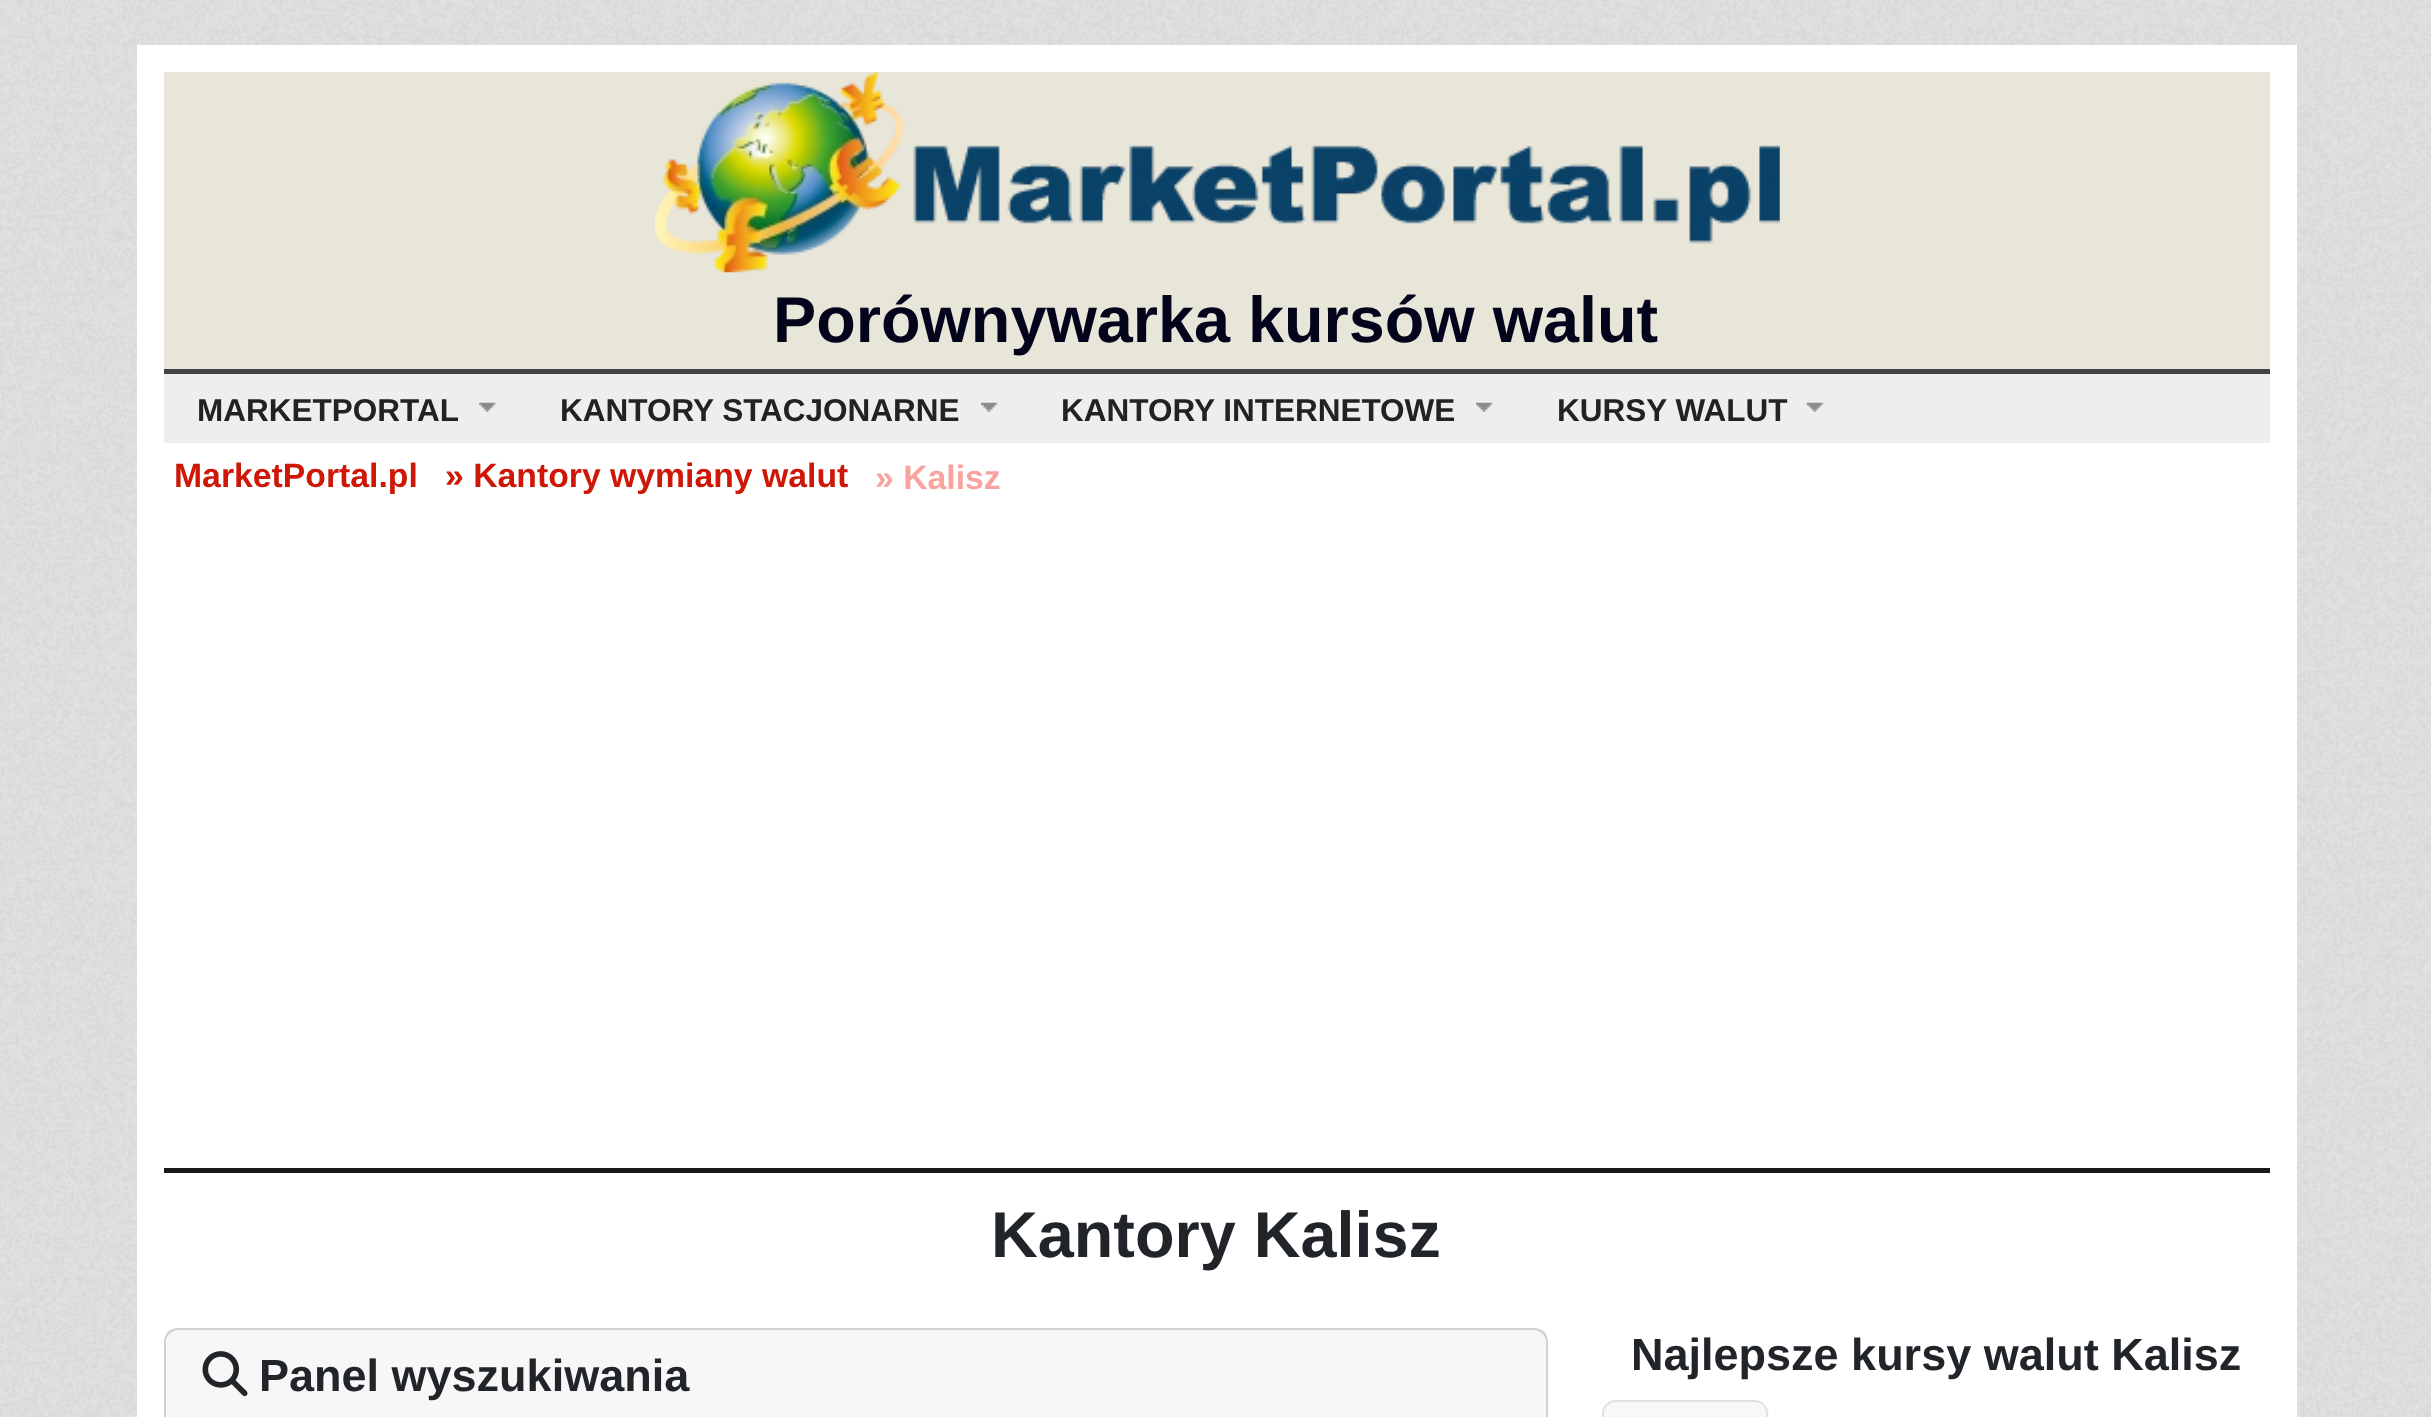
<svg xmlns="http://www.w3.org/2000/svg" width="2431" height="1417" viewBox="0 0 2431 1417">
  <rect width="100%" height="100%" fill="rgb(225,225,225)"/>
  <image x="0" y="0" width="2431" height="1417" href="pic1.png"/>
  <rect x="137" y="45" width="2160" height="1372" fill="rgb(255,255,255)"/>
  <rect x="164" y="72" width="2106" height="297" fill="rgb(232,229,217)"/>
  <rect x="164" y="369" width="2106" height="5" fill="rgb(68,68,68)"/>
  <image x="654" y="72" width="1126" height="201" href="pic2.png"/>
  <text x="773" y="342" font-family="Liberation Sans" font-size="64.75" font-weight="bold" fill="rgb(3,4,27)">Porównywarka kursów walut</text>
  <rect x="164" y="374" width="2106" height="69" fill="rgb(238,238,238)"/>
  <image x="479" y="402" width="17" height="10" href="pic3.png"/>
  <text x="197" y="421" font-family="Liberation Sans" font-size="31.5" font-weight="bold" fill="rgb(34,34,34)">MARKETPORTAL</text>
  <image x="981" y="402" width="17" height="10" href="pic4.png"/>
  <text x="560" y="421" font-family="Liberation Sans" font-size="31.5" font-weight="bold" fill="rgb(34,34,34)">KANTORY STACJONARNE</text>
  <image x="1476" y="402" width="17" height="10" href="pic4.png"/>
  <text x="1061" y="421" font-family="Liberation Sans" font-size="31.5" font-weight="bold" fill="rgb(34,34,34)">KANTORY INTERNETOWE</text>
  <image x="1806" y="402" width="18" height="10" href="pic5.png"/>
  <text x="1557" y="421" font-family="Liberation Sans" font-size="31.5" font-weight="bold" fill="rgb(34,34,34)">KURSY WALUT</text>
  <g font-family="Liberation Sans" font-size="33.75" font-weight="bold" fill="rgb(206,23,6)">
    <text x="174" y="487">MarketPortal.pl</text>
    <text x="445" y="487">» Kantory wymiany walut</text>
  </g>
  <text x="875" y="489" font-family="Liberation Sans" font-size="33.75" font-weight="bold" fill="rgb(248,163,157)">» Kalisz</text>
  <rect x="164" y="1168" width="2106" height="5" fill="rgb(26,26,26)"/>
  <text x="991" y="1257" font-family="Liberation Sans" font-size="64.75" font-weight="bold" fill="rgb(33,37,41)">Kantory Kalisz</text>
  <rect x="165" y="1329" width="1382" height="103" rx="13" fill="none" stroke="rgb(210,210,210)" stroke-width="2"/>
  <rect x="167" y="1330" width="1379" height="87" fill="rgba(0,0,0,0.03)"/>
  <image x="202" y="1351" width="46" height="46" href="pic6.png"/>
  <g font-family="Liberation Sans" font-size="45" font-weight="bold" fill="rgb(33,37,41)">
    <text x="259" y="1391">Panel wyszukiwania</text>
    <text x="1631" y="1370">Najlepsze kursy walut Kalisz</text>
  </g>
  <path d="M1616 1400H1755C1762.5 1400 1769 1406.5 1769 1414V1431H1602V1414C1602 1406.5 1608.5 1400 1616 1400Z" fill="rgb(249,247,247)"/>
  <path d="M1616 1400C1612 1400 1609 1401 1606 1404L1608 1405C1610 1403 1613 1402 1616 1402H1755C1758 1402 1761 1403 1763 1405L1764 1404C1762 1402 1758 1400 1755 1400Z" fill="rgb(222,226,230)"/>
  <path d="M1768 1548V1413C1768 1410 1766 1406 1764 1404L1763 1405C1765 1407 1766 1410 1766 1413V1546Z" fill="rgb(222,226,230)"/>
  <path d="M1602 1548L1604 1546V1413C1604 1410 1605 1407 1608 1405L1606 1404C1604 1406 1602 1409 1602 1413Z" fill="rgb(222,226,230)"/>
</svg>
